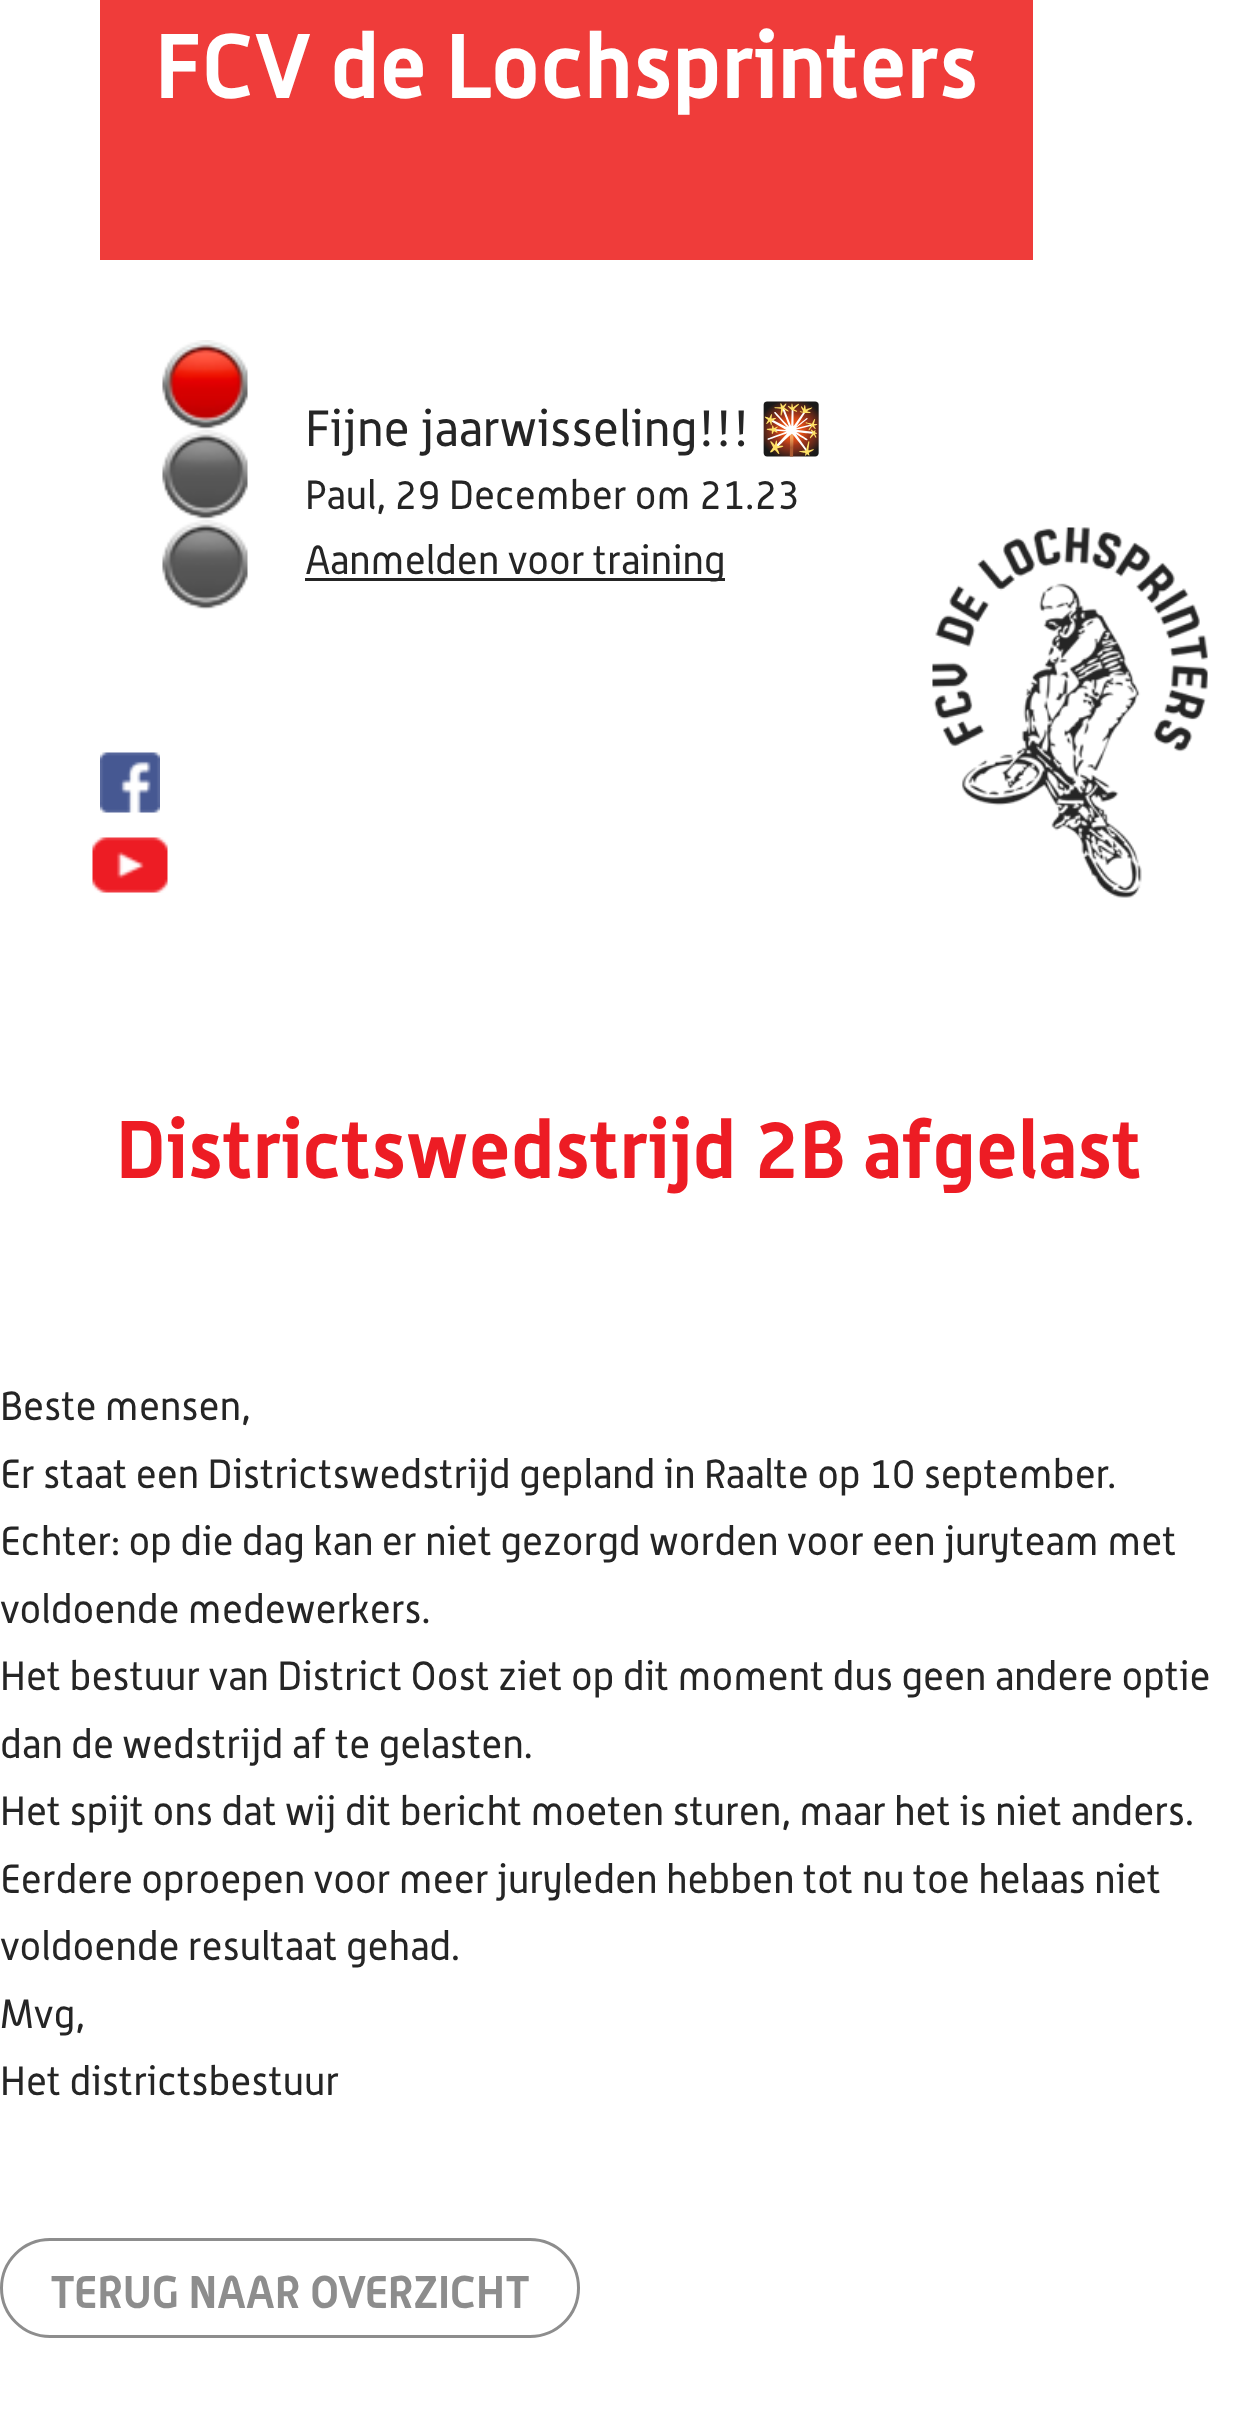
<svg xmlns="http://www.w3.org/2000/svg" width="1257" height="2433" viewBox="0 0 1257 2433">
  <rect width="100%" height="100%" fill="rgb(255,255,255)"/>
  <rect x="100" y="0" width="933" height="260" fill="rgb(239,60,58)"/>
  <text x="155" y="98" font-family="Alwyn" font-size="90" font-weight="bold" fill="rgb(255,255,255)">FCV de Lochsprinters</text>
  <image x="162" y="340" width="86" height="90" href="pic1.png"/>
  <image x="162" y="430" width="86" height="90" href="pic2.png"/>
  <image x="162" y="520" width="86" height="90" href="pic2.png"/>
  <text x="305" y="446" font-family="Alwyn" font-size="50" fill="rgb(37,37,37)">Fijne jaarwisseling!!!</text>
  <text x="760" y="446" font-family="Noto Color Emoji" font-size="50" fill="rgb(37,37,37)">🎇</text>
  <text x="305" y="509" font-family="Alwyn" font-size="40" fill="rgb(37,37,37)">Paul, 29 December om 21.23</text>
  <rect x="305" y="578" width="420" height="3" fill="rgb(37,37,37)"/>
  <text x="305" y="574" font-family="Alwyn" font-size="40" fill="rgb(37,37,37)">Aanmelden voor training</text>
  <image x="100" y="752" width="60" height="61" href="pic3.png"/>
  <image x="92" y="837" width="76" height="56" href="pic4.png"/>
  <image x="932" y="527" width="276" height="371" href="pic5.png"/>
  <text x="116" y="1178" font-family="Alwyn" font-size="80" font-weight="bold" fill="rgb(237,28,36)">Districtswedstrijd 2B afgelast</text>
  <g font-family="Alwyn" font-size="40" fill="rgb(37,37,37)">
    <text>
      <tspan x="0" y="1420">Beste mensen,</tspan>
      <tspan x="0" y="1488">Er staat een Districtswedstrijd gepland in Raalte op 10 september.</tspan>
      <tspan x="0" y="1555">Echter: op die dag kan er niet gezorgd worden voor een juryteam met</tspan>
      <tspan x="0" y="1623">voldoende medewerkers.</tspan>
      <tspan x="0" y="1690">Het bestuur van District Oost ziet op dit moment dus geen andere optie</tspan>
      <tspan x="0" y="1758">dan de wedstrijd af te gelasten.</tspan>
      <tspan x="0" y="1825">Het spijt ons dat wij dit bericht moeten sturen, maar het is niet anders.</tspan>
      <tspan x="0" y="1893">Eerdere oproepen voor meer juryleden hebben tot nu toe helaas niet</tspan>
      <tspan x="0" y="1960">voldoende resultaat gehad.</tspan>
      <tspan x="0" y="2028">Mvg,</tspan>
      <tspan x="0" y="2095">Het districtsbestuur</tspan>
    </text>
  </g>
  <rect x="1.5" y="2239.5" width="577" height="97" rx="48.5" fill="none" stroke="rgb(141,141,141)" stroke-width="3"/>
  <text x="50" y="2308" font-family="Alwyn" font-size="45" font-weight="bold" fill="rgb(141,141,141)">TERUG NAAR OVERZICHT</text>
</svg>
